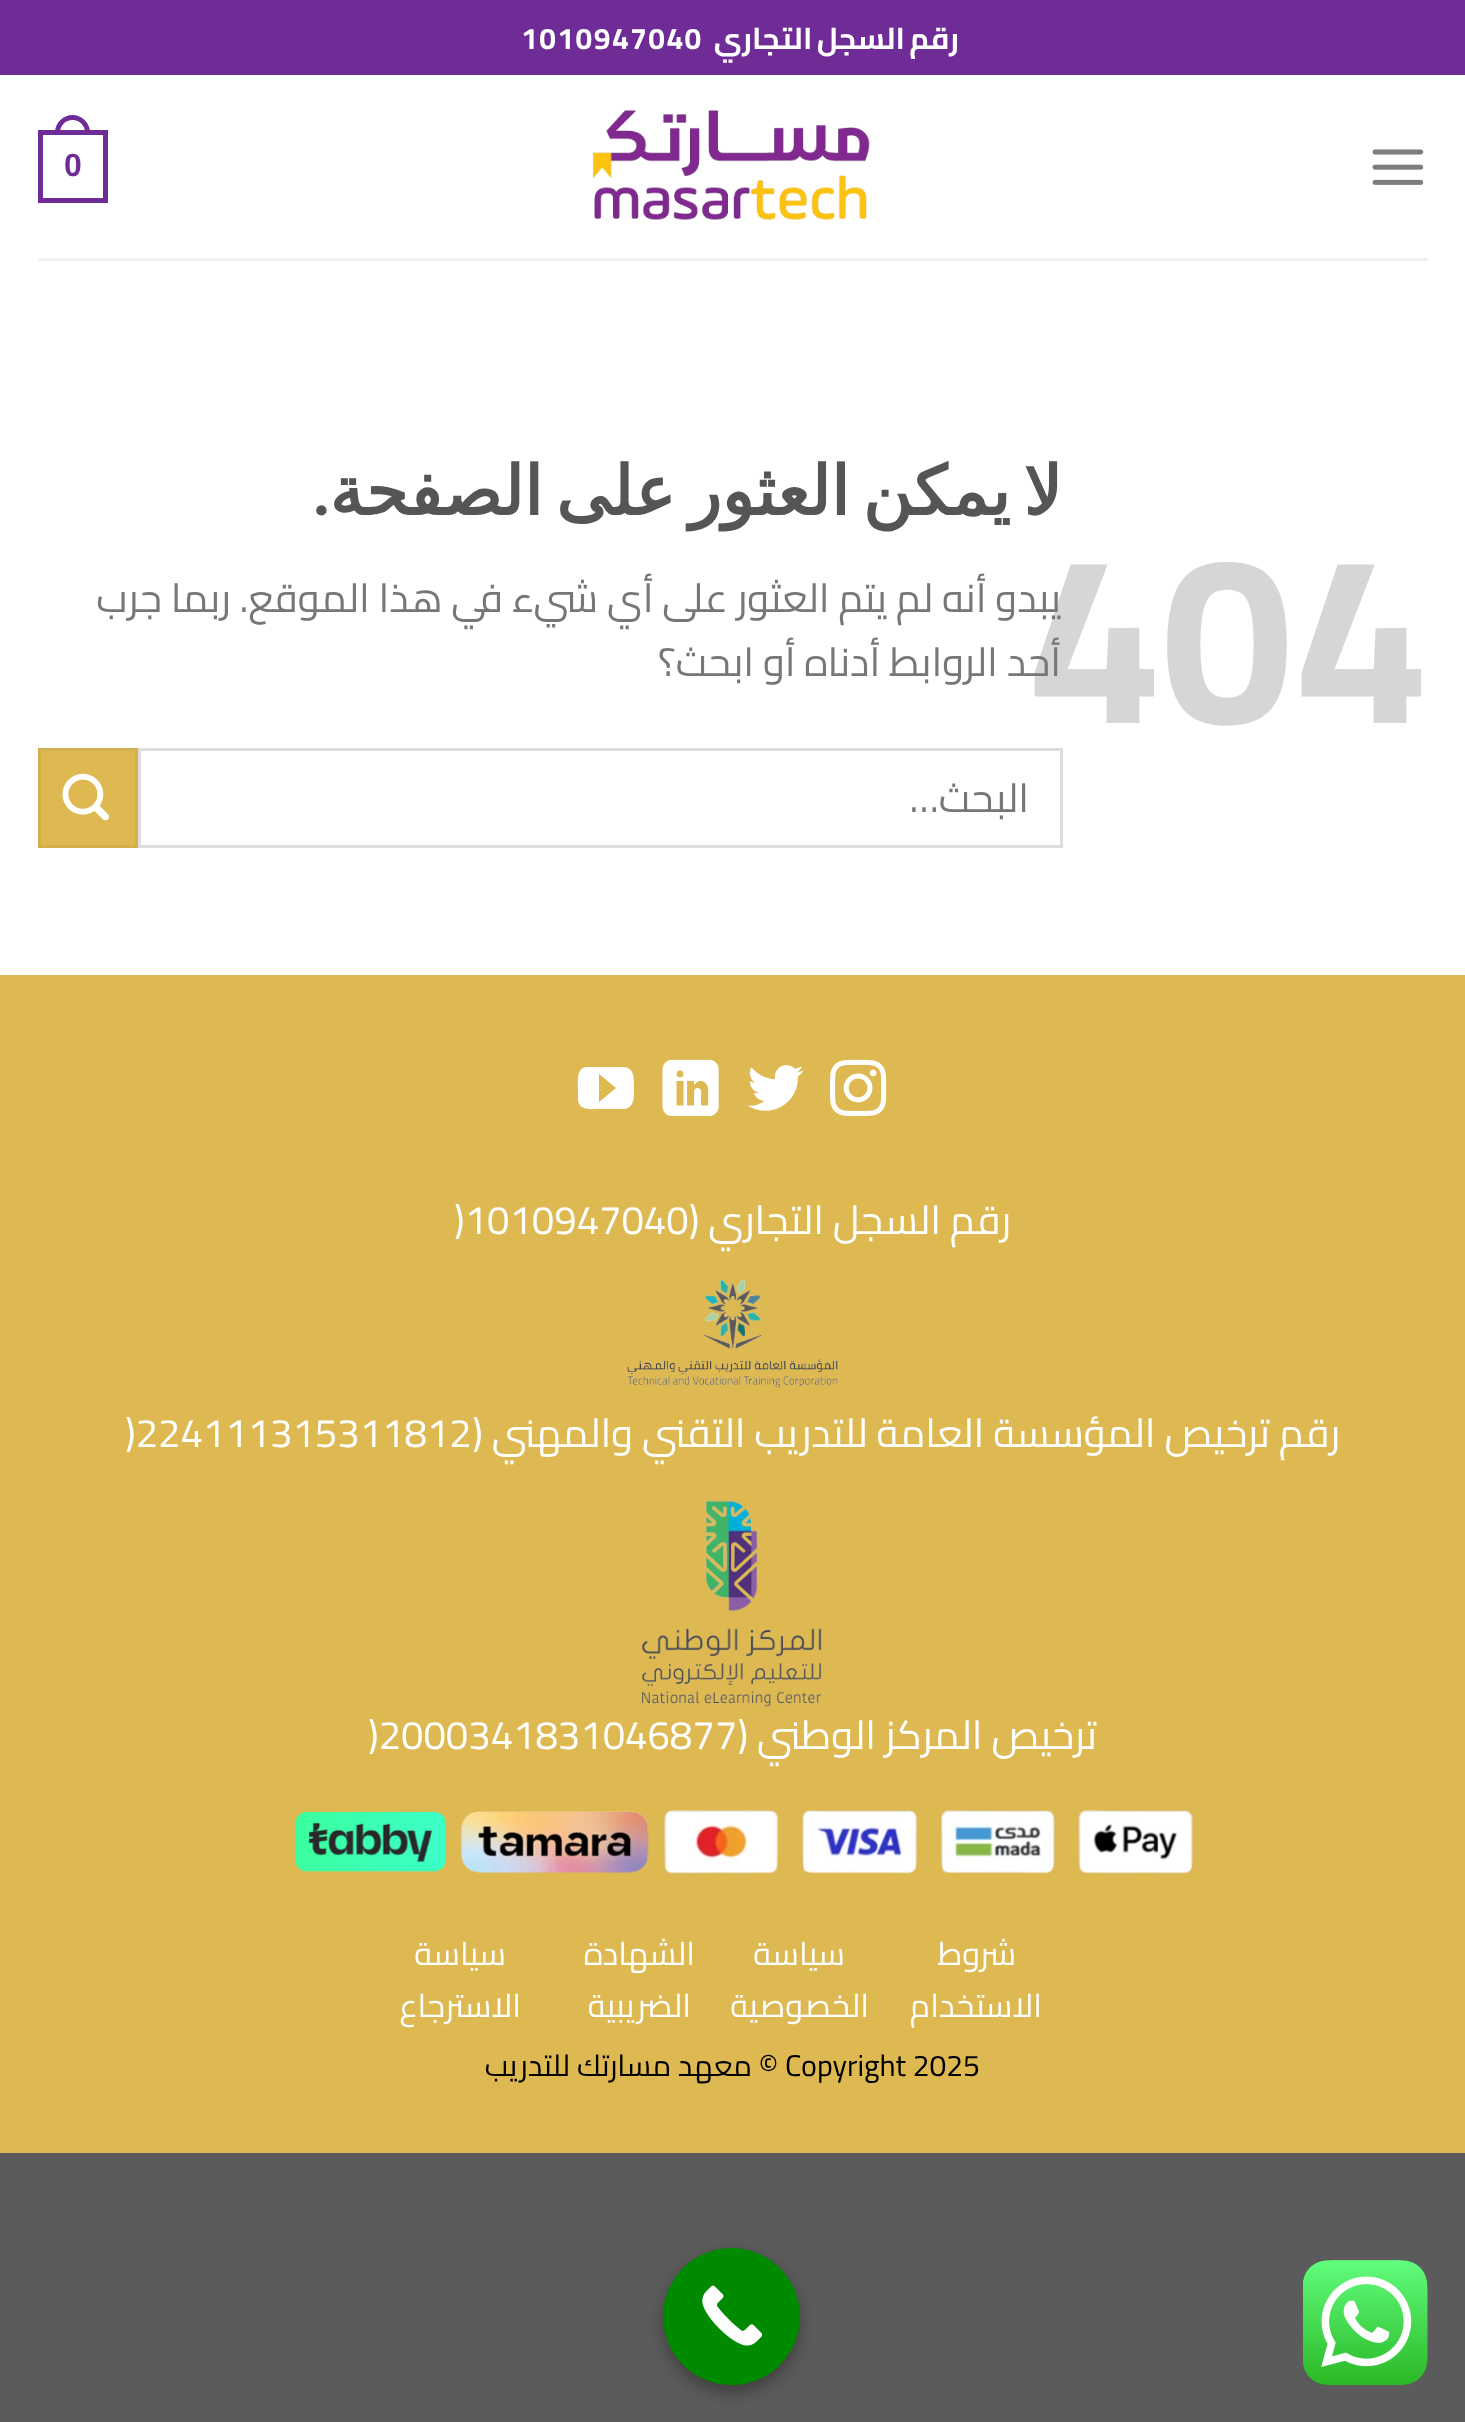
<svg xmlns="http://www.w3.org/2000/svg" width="1465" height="2422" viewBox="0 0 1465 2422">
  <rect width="100%" height="100%" fill="rgb(91,91,91)"/>
  <rect x="0" y="75" width="1465" height="900" fill="rgb(255,255,255)"/>
  <rect x="0" y="0" width="1465" height="75" fill="rgb(111,43,150)"/>
  <text x="521" y="49" font-family="Cairo" font-size="30" font-weight="bold" letter-spacing="1.5" fill="rgb(255,255,255)">1010947040</text>
  <text x="959" y="49" word-spacing="-2" font-family="Cairo" font-size="30" font-weight="bold" letter-spacing="1.5" direction="rtl" fill="rgb(255,255,255)">رقم السجل التجاري</text>
  <image x="1372" y="149" width="52" height="36" href="pic1.png"/>
  <image x="592" y="110" width="278" height="110" href="pic2.png"/>
  <rect x="40.5" y="132.5" width="65" height="68" fill="none" stroke="rgb(111,43,150)" stroke-width="5"/>
  <path d="M72.5 115C82 115 90 123 90 132.5V135H55V132.5C55 123 63 115 72.5 115ZM72.5 120C79.5 120 85 125.5 85 132.5V135H60V132.5C60 125.5 65.5 120 72.5 120Z" fill="rgb(111,43,150)" fill-rule="evenodd"/>
  <text x="64" y="176" font-family="Liberation Sans" font-size="32" font-weight="bold" fill="rgb(111,43,150)">0</text>
  <rect x="38" y="258" width="1390" height="3" fill="rgb(241,241,241)"/>
  <text x="1027" y="723" font-family="Cairo" font-size="240" font-weight="bold" fill="rgb(214,214,214)">404</text>
  <text x="1062" y="515" word-spacing="-8.5" font-family="DejaVu Sans" font-size="68" font-weight="bold" direction="rtl" fill="rgb(85,85,85)">لا يمكن العثور على الصفحة</text>
  <text x="329" y="515" font-family="Lato" font-size="68" font-weight="bold" direction="rtl" fill="rgb(85,85,85)">.</text>
  <g font-family="Cairo" font-size="40" direction="rtl" fill="rgb(119,119,119)">
    <text>
      <tspan x="1061" y="612">يبدو أنه لم يتم العثور على أي شيء في هذا الموقع. ربما جرب</tspan>
      <tspan x="1061" y="676">أحد الروابط أدناه أو ابحث؟</tspan>
    </text>
  </g>
  <rect x="139.5" y="749.5" width="922" height="97" fill="none" stroke="rgb(221,221,221)" stroke-width="3"/>
  <text x="1029" y="812" font-family="Cairo" font-size="40" direction="rtl" fill="rgb(119,119,119)">البحث…</text>
  <rect x="39.5" y="749.5" width="97" height="97" fill="rgb(222,184,80)" stroke="rgb(211,175,76)" stroke-width="3"/>
  <image x="62" y="773" width="47" height="48" href="pic3.png"/>
  <rect x="0" y="975" width="1465" height="1178" fill="rgb(222,184,80)"/>
  <image x="830" y="1059" width="57" height="57" href="pic4.png"/>
  <image x="747" y="1065" width="57" height="46" href="pic5.png"/>
  <image x="662" y="1059" width="57" height="57" href="pic6.png"/>
  <path d="M623 1067H587C576 1068 578 1080 578 1088V1100C579 1111 592 1109 600 1109H624C635 1108 634 1096 634 1088C634 1080 635 1067 623 1067ZM599 1102V1074L616 1088Z" fill="rgb(255,255,255)"/>
  <text x="1011" y="1234" font-family="Cairo" font-size="40" direction="rtl" fill="rgb(255,255,255)">رقم السجل التجاري (</text>
  <text x="454" y="1234" font-family="Cairo" font-size="40" fill="rgb(255,255,255)">)1010947040</text>
  <image x="627" y="1280" width="211" height="108" href="pic7.png"/>
  <text x="1340" y="1447" font-family="Cairo" font-size="40" direction="rtl" fill="rgb(255,255,255)">رقم ترخيص المؤسسة العامة للتدريب التقني والمهني (</text>
  <text x="125" y="1447" font-family="Cairo" font-size="40" fill="rgb(255,255,255)">)224111315311812</text>
  <image x="641" y="1500" width="181" height="207" href="pic8.png"/>
  <text x="1097" y="1749" font-family="Cairo" font-size="40" direction="rtl" fill="rgb(255,255,255)">ترخيص المركز الوطني (</text>
  <text x="368" y="1749" font-family="Cairo" font-size="40" fill="rgb(255,255,255)">)2000341831046877</text>
  <image x="295" y="1809" width="898" height="65" href="pic9.png"/>
  <g font-family="Cairo" font-size="32.5" direction="rtl" fill="rgb(255,255,255)">
    <text x="1016" y="1965">شروط</text>
    <text x="1042" y="2017">الاستخدام</text>
    <text x="845" y="1965">سياسة</text>
    <text x="869" y="2017">الخصوصية</text>
    <text x="695" y="1965">الشهادة</text>
    <text x="691" y="2017">الضريبية</text>
    <text x="506" y="1965">سياسة</text>
    <text x="521" y="2017">الاسترجاع</text>
  </g>
  <text x="785" y="2076" font-family="Cairo" font-size="30" fill="rgb(0,0,0)">Copyright 2025</text>
  <g font-family="Cairo" font-size="30" direction="rtl" fill="rgb(0,0,0)">
    <text x="778" y="2076">© معهد مسارتك</text>
    <text x="570" y="2076">للتدريب</text>
  </g>
  <image x="1303" y="2260" width="125" height="125" href="pic10.png"/>
  <rect x="663" y="2255" width="137" height="138" rx="68.5" fill="rgba(0,0,0,0.3)" filter="blur(7.5px)"/>
  <circle cx="731.5" cy="2316.5" r="68.5" fill="rgb(0,138,0)"/>
  <image x="702" y="2285" width="61" height="61" href="pic11.png"/>
</svg>
